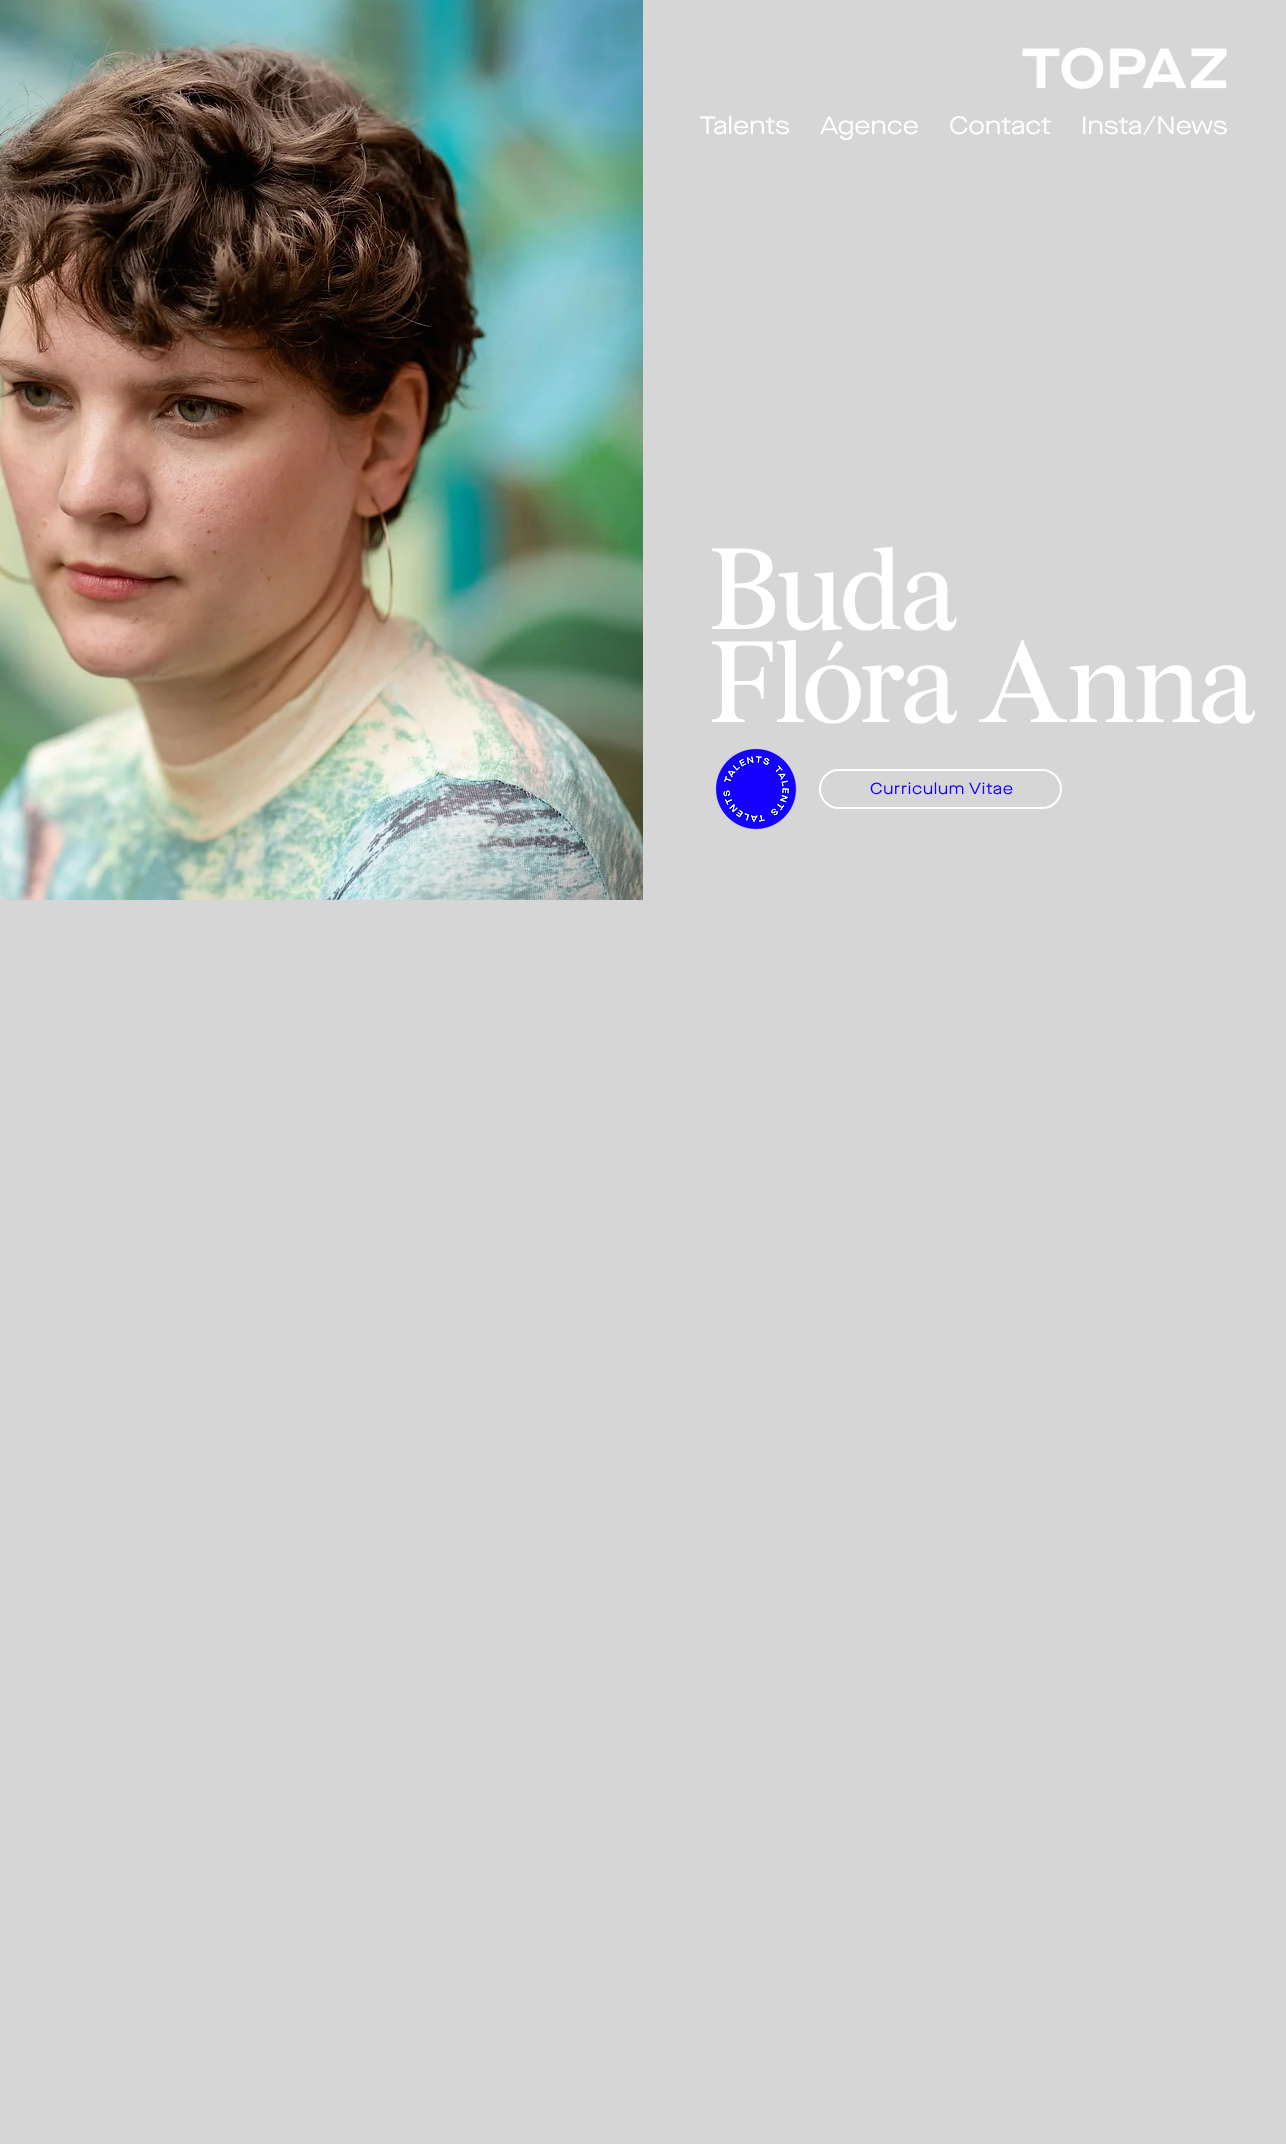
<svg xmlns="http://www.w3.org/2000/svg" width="1286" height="2144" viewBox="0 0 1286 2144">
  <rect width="100%" height="100%" fill="rgb(214,214,214)"/>
  <image x="1022" y="47" width="205" height="42" href="pic1.png"/>
  <g font-family="'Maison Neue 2'" font-size="25" fill="rgb(255,255,255)">
    <text x="699" y="134">Talents</text>
    <text x="820" y="134">Agence</text>
    <text x="949" y="134">Contact</text>
    <text x="1081" y="134">Insta/News</text>
  </g>
  <image x="0" y="0" width="643" height="900" href="pic2.png"/>
  <g font-family="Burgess" font-size="115" fill="rgb(255,255,255)">
    <text>
      <tspan x="710" y="629">Buda</tspan>
      <tspan x="710" y="722">Flóra Anna</tspan>
    </text>
  </g>
  <image x="715" y="748" width="82" height="82" href="pic3.png"/>
  <rect x="820" y="770" width="241" height="38" rx="19" fill="none" stroke="rgb(255,255,255)" stroke-width="2"/>
  <text x="870" y="794" font-family="Maison Neue" font-size="16" letter-spacing="0.75" fill="rgb(22,0,255)">Curriculum Vitae</text>
</svg>
